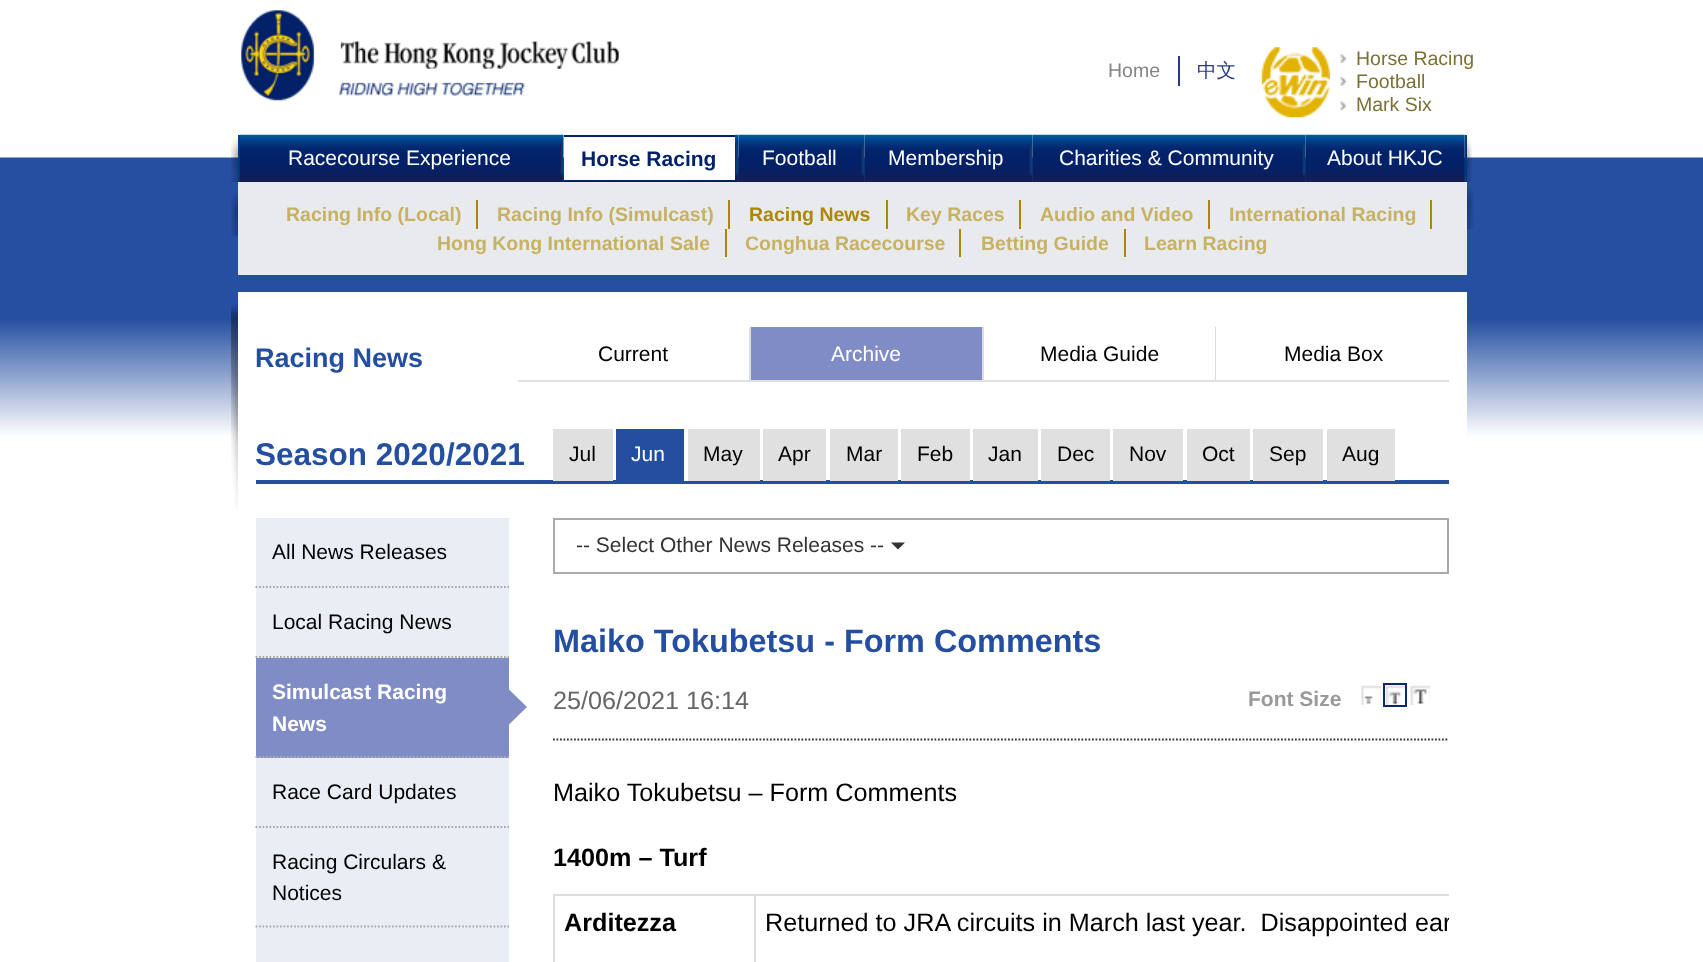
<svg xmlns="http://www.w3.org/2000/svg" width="1703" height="962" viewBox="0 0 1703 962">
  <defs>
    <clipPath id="clip1"><rect x="553" y="840" width="896" height="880"/></clipPath>
  </defs>
  <rect width="100%" height="100%" fill="rgb(255,255,255)"/>
  <image x="0" y="157" width="1703" height="279" href="pic1.png"/>
  <image x="241" y="10" width="378" height="91" href="pic2.png"/>
  <text x="1108" y="77" font-family="Liberation Sans" font-size="19.5" fill="rgb(132,132,132)">Home</text>
  <rect x="1178" y="56" width="2" height="30" fill="rgb(42,57,129)"/>
  <text x="1197" y="77" font-family="WenQuanYi Zen Hei" font-size="19.5" font-weight="500" fill="rgb(42,57,129)">中文</text>
  <image x="1261" y="47" width="69" height="71" href="pic3.png"/>
  <image x="1340" y="54" width="6" height="9" href="pic4.png"/>
  <text x="1356" y="65" font-family="Liberation Sans" font-size="19.5" fill="rgb(123,113,53)">Horse Racing</text>
  <image x="1340" y="77" width="6" height="9" href="pic5.png"/>
  <text x="1356" y="88" font-family="Liberation Sans" font-size="19.5" fill="rgb(123,113,53)">Football</text>
  <image x="1340" y="101" width="6" height="10" href="pic6.png"/>
  <text x="1356" y="111" font-family="Liberation Sans" font-size="19.5" fill="rgb(123,113,53)">Mark Six</text>
  <image x="231" y="138" width="7" height="44" href="pic7.png"/>
  <rect x="238" y="135" width="2" height="47" fill="rgb(0,60,132)"/>
  <image x="239" y="134" width="321" height="48" href="pic8.png"/>
  <text x="288" y="165" font-family="Liberation Sans" font-size="21" fill="rgb(255,255,255)">Racecourse Experience</text>
  <image x="560" y="134" width="4" height="48" href="pic9.png"/>
  <rect x="564" y="157" width="171" height="23" fill="rgb(255,255,255)"/>
  <rect x="564" y="135" width="171" height="2" fill="rgb(2,33,105)"/>
  <rect x="564" y="180" width="171" height="2" fill="rgb(2,33,105)"/>
  <text x="581" y="166" font-family="Liberation Sans" font-size="21" font-weight="bold" fill="rgb(2,33,105)">Horse Racing</text>
  <image x="735" y="134" width="4" height="48" href="pic9.png"/>
  <image x="738" y="134" width="123" height="48" href="pic10.png"/>
  <text x="762" y="165" font-family="Liberation Sans" font-size="21" fill="rgb(255,255,255)">Football</text>
  <image x="861" y="134" width="4" height="48" href="pic9.png"/>
  <image x="864" y="134" width="165" height="48" href="pic11.png"/>
  <text x="888" y="165" font-family="Liberation Sans" font-size="21" fill="rgb(255,255,255)">Membership</text>
  <image x="1029" y="134" width="4" height="48" href="pic9.png"/>
  <image x="1032" y="134" width="270" height="48" href="pic12.png"/>
  <text x="1059" y="165" font-family="Liberation Sans" font-size="21" fill="rgb(255,255,255)">Charities &amp; Community</text>
  <image x="1302" y="134" width="4" height="48" href="pic9.png"/>
  <rect x="1465" y="135" width="2" height="47" fill="rgb(0,60,132)"/>
  <image x="1305" y="134" width="160" height="48" href="pic13.png"/>
  <text x="1327" y="165" font-family="Liberation Sans" font-size="21" fill="rgb(255,255,255)">About HKJC</text>
  <image x="1466" y="138" width="6" height="44" href="pic14.png"/>
  <image x="231" y="193" width="7" height="44" href="pic15.png"/>
  <rect x="238" y="182" width="1229" height="93" fill="rgb(232,234,238)"/>
  <rect x="476" y="200" width="2" height="29" fill="rgb(174,135,1)"/>
  <text x="286" y="221" font-family="Liberation Sans" font-size="19.5" font-weight="bold" fill="rgb(199,177,99)">Racing Info (Local)</text>
  <rect x="728" y="200" width="2" height="29" fill="rgb(174,135,1)"/>
  <text x="497" y="221" font-family="Liberation Sans" font-size="19.5" font-weight="bold" fill="rgb(199,177,99)">Racing Info (Simulcast)</text>
  <rect x="886" y="200" width="2" height="29" fill="rgb(174,135,1)"/>
  <text x="749" y="221" font-family="Liberation Sans" font-size="19.5" font-weight="bold" fill="rgb(174,135,1)">Racing News</text>
  <rect x="1019" y="200" width="2" height="29" fill="rgb(174,135,1)"/>
  <text x="906" y="221" font-family="Liberation Sans" font-size="19.5" font-weight="bold" fill="rgb(199,177,99)">Key Races</text>
  <rect x="1208" y="200" width="2" height="29" fill="rgb(174,135,1)"/>
  <text x="1040" y="221" font-family="Liberation Sans" font-size="19.5" font-weight="bold" fill="rgb(199,177,99)">Audio and Video</text>
  <rect x="1430" y="200" width="2" height="29" fill="rgb(174,135,1)"/>
  <text x="1229" y="221" font-family="Liberation Sans" font-size="19.5" font-weight="bold" fill="rgb(199,177,99)">International Racing</text>
  <rect x="725" y="229" width="2" height="28" fill="rgb(174,135,1)"/>
  <text x="437" y="250" font-family="Liberation Sans" font-size="19.5" font-weight="bold" fill="rgb(199,177,99)">Hong Kong International Sale</text>
  <rect x="959" y="229" width="2" height="28" fill="rgb(174,135,1)"/>
  <text x="745" y="250" font-family="Liberation Sans" font-size="19.5" font-weight="bold" fill="rgb(199,177,99)">Conghua Racecourse</text>
  <rect x="1124" y="229" width="2" height="28" fill="rgb(174,135,1)"/>
  <g font-family="Liberation Sans" font-size="19.5" font-weight="bold" fill="rgb(199,177,99)">
    <text x="981" y="250">Betting Guide</text>
    <text x="1144" y="250">Learn Racing</text>
  </g>
  <image x="1467" y="186" width="7" height="44" href="pic16.png"/>
  <image x="231" y="304" width="7" height="205" href="pic17.png"/>
  <rect x="238" y="292" width="1229" height="144" fill="rgb(255,255,255)"/>
  <text x="255" y="367" font-family="Liberation Sans" font-size="27" font-weight="bold" fill="rgb(36,79,161)">Racing News</text>
  <rect x="749" y="327" width="2" height="55" fill="rgb(221,221,221)"/>
  <rect x="518" y="380" width="233" height="2" fill="rgb(225,225,225)"/>
  <text x="598" y="361" font-family="Liberation Sans" font-size="21" fill="rgb(0,0,0)">Current</text>
  <rect x="751" y="327" width="231" height="53" fill="rgb(128,140,197)"/>
  <rect x="982" y="327" width="2" height="55" fill="rgb(221,221,221)"/>
  <rect x="751" y="380" width="233" height="2" fill="rgb(225,225,225)"/>
  <text x="831" y="361" font-family="Liberation Sans" font-size="21" fill="rgb(255,255,255)">Archive</text>
  <rect x="1215" y="327" width="1" height="55" fill="rgb(221,221,221)"/>
  <rect x="984" y="380" width="465" height="2" fill="rgb(225,225,225)"/>
  <g font-family="Liberation Sans" font-size="21" fill="rgb(0,0,0)">
    <text x="1040" y="361">Media Guide</text>
    <text x="1284" y="361">Media Box</text>
  </g>
  <rect x="256" y="480" width="1193" height="4" fill="rgb(36,79,161)"/>
  <text x="255" y="465" font-family="Liberation Sans" font-size="31.5" font-weight="bold" fill="rgb(36,79,161)">Season 2020/2021</text>
  <rect x="553" y="429" width="60" height="52" fill="rgb(224,224,224)"/>
  <text x="569" y="461" font-family="Liberation Sans" font-size="21" fill="rgb(0,0,0)">Jul</text>
  <rect x="616" y="429" width="68" height="51" fill="rgb(36,79,161)"/>
  <rect x="684" y="480" width="4" height="1" fill="rgb(255,255,255)"/>
  <text x="631" y="461" font-family="Liberation Sans" font-size="21" fill="rgb(255,255,255)">Jun</text>
  <rect x="688" y="429" width="72" height="52" fill="rgb(224,224,224)"/>
  <text x="703" y="461" font-family="Liberation Sans" font-size="21" fill="rgb(0,0,0)">May</text>
  <rect x="763" y="429" width="63" height="52" fill="rgb(224,224,224)"/>
  <text x="778" y="461" font-family="Liberation Sans" font-size="21" fill="rgb(0,0,0)">Apr</text>
  <rect x="830" y="429" width="68" height="52" fill="rgb(224,224,224)"/>
  <text x="846" y="461" font-family="Liberation Sans" font-size="21" fill="rgb(0,0,0)">Mar</text>
  <rect x="901" y="429" width="69" height="52" fill="rgb(224,224,224)"/>
  <text x="917" y="461" font-family="Liberation Sans" font-size="21" fill="rgb(0,0,0)">Feb</text>
  <rect x="973" y="429" width="65" height="52" fill="rgb(224,224,224)"/>
  <text x="988" y="461" font-family="Liberation Sans" font-size="21" fill="rgb(0,0,0)">Jan</text>
  <rect x="1041" y="429" width="69" height="52" fill="rgb(224,224,224)"/>
  <text x="1057" y="461" font-family="Liberation Sans" font-size="21" fill="rgb(0,0,0)">Dec</text>
  <rect x="1113" y="429" width="70" height="52" fill="rgb(224,224,224)"/>
  <text x="1129" y="461" font-family="Liberation Sans" font-size="21" fill="rgb(0,0,0)">Nov</text>
  <rect x="1187" y="429" width="63" height="52" fill="rgb(224,224,224)"/>
  <text x="1202" y="461" font-family="Liberation Sans" font-size="21" fill="rgb(0,0,0)">Oct</text>
  <rect x="1253" y="429" width="70" height="52" fill="rgb(224,224,224)"/>
  <text x="1269" y="461" font-family="Liberation Sans" font-size="21" fill="rgb(0,0,0)">Sep</text>
  <rect x="1327" y="429" width="68" height="52" fill="rgb(224,224,224)"/>
  <text x="1342" y="461" font-family="Liberation Sans" font-size="21" fill="rgb(0,0,0)">Aug</text>
  <rect x="256" y="518" width="253" height="140" fill="rgb(233,238,245)"/>
  <path d="M255.5 587H509" fill="none" stroke="rgb(171,171,171)" stroke-width="1.8" stroke-dasharray="1.75 1.75"/>
  <text x="272" y="559" font-family="Liberation Sans" font-size="21" fill="rgb(0,0,0)">All News Releases</text>
  <path d="M255.5 657H509" fill="none" stroke="rgb(171,171,171)" stroke-width="1.8" stroke-dasharray="1.75 1.75"/>
  <text x="272" y="629" font-family="Liberation Sans" font-size="21" fill="rgb(0,0,0)">Local Racing News</text>
  <rect x="256" y="658" width="253" height="100" fill="rgb(128,140,197)"/>
  <path d="M255.5 757H509" fill="none" stroke="rgb(171,171,171)" stroke-width="1.8" stroke-dasharray="1.75 1.75"/>
  <text x="272" y="699" font-family="Liberation Sans" font-size="21" font-weight="bold" fill="rgb(255,255,255)">Simulcast Racing</text>
  <path d="M509 724.5V689.5L527 707Z" fill="rgb(128,140,197)"/>
  <text x="272" y="731" font-family="Liberation Sans" font-size="21" font-weight="bold" fill="rgb(255,255,255)">News</text>
  <rect x="256" y="758" width="253" height="204" fill="rgb(233,238,245)"/>
  <path d="M255.5 827H509" fill="none" stroke="rgb(171,171,171)" stroke-width="1.8" stroke-dasharray="1.75 1.75"/>
  <text x="272" y="799" font-family="Liberation Sans" font-size="21" fill="rgb(0,0,0)">Race Card Updates</text>
  <path d="M255.5 926.5H509" fill="none" stroke="rgb(171,171,171)" stroke-width="1.8" stroke-dasharray="1.75 1.75"/>
  <g font-family="Liberation Sans" font-size="21" fill="rgb(0,0,0)">
    <text>
      <tspan x="272" y="869">Racing Circulars &amp;</tspan>
      <tspan x="272" y="900">Notices</tspan>
    </text>
  </g>
  <rect x="554" y="519" width="894" height="54" fill="none" stroke="rgb(170,170,170)" stroke-width="2"/>
  <text x="576" y="552" font-family="Liberation Sans" font-size="21" fill="rgb(51,51,51)">-- Select Other News Releases --</text>
  <path d="M891 542.5H905L898 549.5Z" fill="rgb(51,51,51)"/>
  <path d="M553 739.5H1449" fill="none" stroke="rgb(51,51,51)" stroke-width="1.8" stroke-dasharray="1.75 1.75"/>
  <text x="553" y="652" font-family="Liberation Sans" font-size="32.4" font-weight="bold" fill="rgb(36,79,161)">Maiko Tokubetsu - Form Comments</text>
  <text x="553" y="709" font-family="Liberation Sans" font-size="25.2" fill="rgb(102,102,102)">25/06/2021 16:14</text>
  <text x="1248" y="706" font-family="Liberation Sans" font-size="21" font-weight="bold" fill="rgb(153,153,153)">Font Size</text>
  <image x="1361" y="685" width="20" height="20" href="pic18.png"/>
  <image x="1385" y="685" width="20" height="20" href="pic19.png"/>
  <rect x="1384" y="684" width="22" height="22" fill="none" stroke="rgb(10,39,115)" stroke-width="2"/>
  <image x="1410" y="685" width="20" height="20" href="pic20.png"/>
  <text x="553" y="801" font-family="Liberation Sans" font-size="25.2" fill="rgb(0,0,0)">Maiko Tokubetsu – Form Comments</text>
  <text x="553" y="866" font-family="Liberation Sans" font-size="25.2" font-weight="bold" fill="rgb(0,0,0)">1400m – Turf</text>
  <rect x="553" y="894" width="896" height="2" fill="rgb(221,221,221)"/>
  <rect x="553" y="894" width="2" height="68" fill="rgb(221,221,221)"/>
  <text x="564" y="931" font-family="Liberation Sans" font-size="25.2" font-weight="bold" fill="rgb(0,0,0)">Arditezza</text>
  <rect x="754" y="894" width="2" height="68" fill="rgb(221,221,221)"/>
  <text x="765" y="931" font-family="Liberation Sans" font-size="25.2" fill="rgb(0,0,0)" xml:space="preserve">Returned to JRA circuits in March last year.  Disappointed</text>
  <g clip-path="url(#clip1)">
    <text x="1415" y="931" font-family="Liberation Sans" font-size="25.2" fill="rgb(0,0,0)">ear</text>
  </g>
</svg>
